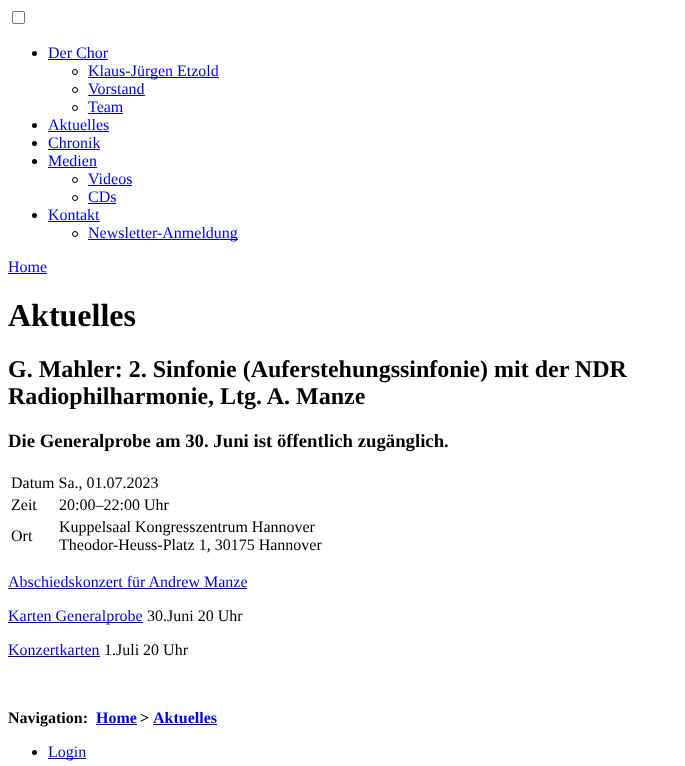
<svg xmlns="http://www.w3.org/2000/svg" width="685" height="766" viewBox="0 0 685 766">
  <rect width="100%" height="100%" fill="rgb(255,255,255)"/>
  <rect x="12.5" y="11.5" width="12" height="12" rx="1.5" fill="none" stroke="rgb(118,118,118)"/>
  <circle cx="34.5" cy="53.5" r="2.5" fill="rgb(0,0,0)"/>
  <text x="48" y="58" font-family="Liberation Serif" font-size="16" fill="rgb(0,0,238)">Der Chor</text>
  <rect x="48" y="59" width="60" height="1" fill="rgb(0,0,238)"/>
  <circle cx="75" cy="72" r="2.5" fill="none" stroke="rgb(0,0,0)"/>
  <rect x="88" y="77" width="131" height="1" fill="rgb(0,0,238)"/>
  <text x="88" y="76" font-family="Liberation Serif" font-size="16" fill="rgb(0,0,238)">Klaus-Jürgen Etzold</text>
  <circle cx="75" cy="90" r="2.5" fill="none" stroke="rgb(0,0,0)"/>
  <text x="88" y="94" font-family="Liberation Serif" font-size="16" fill="rgb(0,0,238)">Vorstand</text>
  <rect x="88" y="95" width="57" height="1" fill="rgb(0,0,238)"/>
  <circle cx="75" cy="108" r="2.5" fill="none" stroke="rgb(0,0,0)"/>
  <text x="88" y="112" font-family="Liberation Serif" font-size="16" fill="rgb(0,0,238)">Team</text>
  <rect x="88" y="113" width="35" height="1" fill="rgb(0,0,238)"/>
  <circle cx="34.5" cy="125.5" r="2.5" fill="rgb(0,0,0)"/>
  <text x="48" y="130" font-family="Liberation Serif" font-size="16" fill="rgb(0,0,238)">Aktuelles</text>
  <rect x="48" y="131" width="61" height="1" fill="rgb(0,0,238)"/>
  <circle cx="34.5" cy="143.5" r="2.5" fill="rgb(0,0,0)"/>
  <text x="48" y="148" font-family="Liberation Serif" font-size="16" fill="rgb(0,0,238)">Chronik</text>
  <rect x="48" y="149" width="52" height="1" fill="rgb(0,0,238)"/>
  <circle cx="34.5" cy="161.5" r="2.5" fill="rgb(0,0,0)"/>
  <text x="48" y="166" font-family="Liberation Serif" font-size="16" fill="rgb(0,0,238)">Medien</text>
  <rect x="48" y="167" width="49" height="1" fill="rgb(0,0,238)"/>
  <circle cx="75" cy="180" r="2.5" fill="none" stroke="rgb(0,0,0)"/>
  <text x="88" y="184" font-family="Liberation Serif" font-size="16" fill="rgb(0,0,238)">Videos</text>
  <rect x="88" y="185" width="44" height="1" fill="rgb(0,0,238)"/>
  <circle cx="75" cy="198" r="2.5" fill="none" stroke="rgb(0,0,0)"/>
  <text x="88" y="202" font-family="Liberation Serif" font-size="16" fill="rgb(0,0,238)">CDs</text>
  <rect x="88" y="203" width="28" height="1" fill="rgb(0,0,238)"/>
  <circle cx="34.5" cy="215.5" r="2.5" fill="rgb(0,0,0)"/>
  <text x="48" y="220" font-family="Liberation Serif" font-size="16" fill="rgb(0,0,238)">Kontakt</text>
  <rect x="48" y="221" width="52" height="1" fill="rgb(0,0,238)"/>
  <circle cx="75" cy="234" r="2.5" fill="none" stroke="rgb(0,0,0)"/>
  <rect x="88" y="239" width="150" height="1" fill="rgb(0,0,238)"/>
  <g font-family="Liberation Serif" font-size="16" fill="rgb(0,0,238)">
    <text x="88" y="238">Newsletter-Anmeldung</text>
    <text x="8" y="272">Home</text>
  </g>
  <rect x="8" y="273" width="39" height="1" fill="rgb(0,0,238)"/>
  <text x="8" y="326" font-family="Liberation Serif" font-size="32" font-weight="bold" fill="rgb(0,0,0)">Aktuelles</text>
  <g font-family="Liberation Serif" font-size="24" font-weight="bold" fill="rgb(0,0,0)">
    <text>
      <tspan x="8" y="377">G. Mahler: 2. Sinfonie (Auferstehungssinfonie) mit der NDR</tspan>
      <tspan x="8" y="404">Radiophilharmonie, Ltg. A. Manze</tspan>
    </text>
  </g>
  <text x="8" y="447" font-family="Liberation Serif" font-size="18.75" font-weight="bold" fill="rgb(0,0,0)">Die Generalprobe am 30. Juni ist öffentlich zugänglich.</text>
  <g font-family="Liberation Serif" font-size="16" fill="rgb(0,0,0)">
    <text>
      <tspan x="11" y="488">Datum Sa., 01.07.2023</tspan>
      <tspan x="11" y="510">Zeit</tspan>
    </text>
    <text x="59" y="510">20:00–22:00 Uhr</text>
    <text x="11" y="541">Ort</text>
    <text>
      <tspan x="59" y="532">Kuppelsaal Kongresszentrum Hannover</tspan>
      <tspan x="59" y="550">Theodor-Heuss-Platz 1, 30175 Hannover</tspan>
    </text>
  </g>
  <text x="8" y="587" font-family="Liberation Serif" font-size="16" fill="rgb(0,0,238)">Abschiedskonzert für Andrew Manze</text>
  <rect x="8" y="588" width="239" height="1" fill="rgb(0,0,238)"/>
  <rect x="8" y="622" width="135" height="1" fill="rgb(0,0,238)"/>
  <text x="8" y="621" font-family="Liberation Serif" font-size="16" fill="rgb(0,0,238)">Karten Generalprobe</text>
  <text x="147" y="621" font-family="Liberation Serif" font-size="16" fill="rgb(0,0,0)">30.Juni 20 Uhr</text>
  <text x="8" y="655" font-family="Liberation Serif" font-size="16" fill="rgb(0,0,238)">Konzertkarten</text>
  <rect x="8" y="656" width="92" height="1" fill="rgb(0,0,238)"/>
  <text x="104" y="655" font-family="Liberation Serif" font-size="16" fill="rgb(0,0,0)">1.Juli 20 Uhr</text>
  <text x="8" y="723" font-family="Liberation Serif" font-size="16" font-weight="bold" fill="rgb(0,0,0)">Navigation:</text>
  <text x="96" y="723" font-family="Liberation Serif" font-size="16" font-weight="bold" fill="rgb(0,0,238)">Home</text>
  <rect x="96" y="724" width="41" height="1" fill="rgb(0,0,238)"/>
  <text x="140" y="723" font-family="Liberation Serif" font-size="16" font-weight="bold" fill="rgb(0,0,0)">&gt;</text>
  <text x="153" y="723" font-family="Liberation Serif" font-size="16" font-weight="bold" fill="rgb(0,0,238)">Aktuelles</text>
  <rect x="153" y="724" width="64" height="1" fill="rgb(0,0,238)"/>
  <circle cx="34.5" cy="752.5" r="2.5" fill="rgb(0,0,0)"/>
  <rect x="48" y="758" width="38" height="1" fill="rgb(0,0,238)"/>
  <text x="48" y="757" font-family="Liberation Serif" font-size="16" fill="rgb(0,0,238)">Login</text>
</svg>
